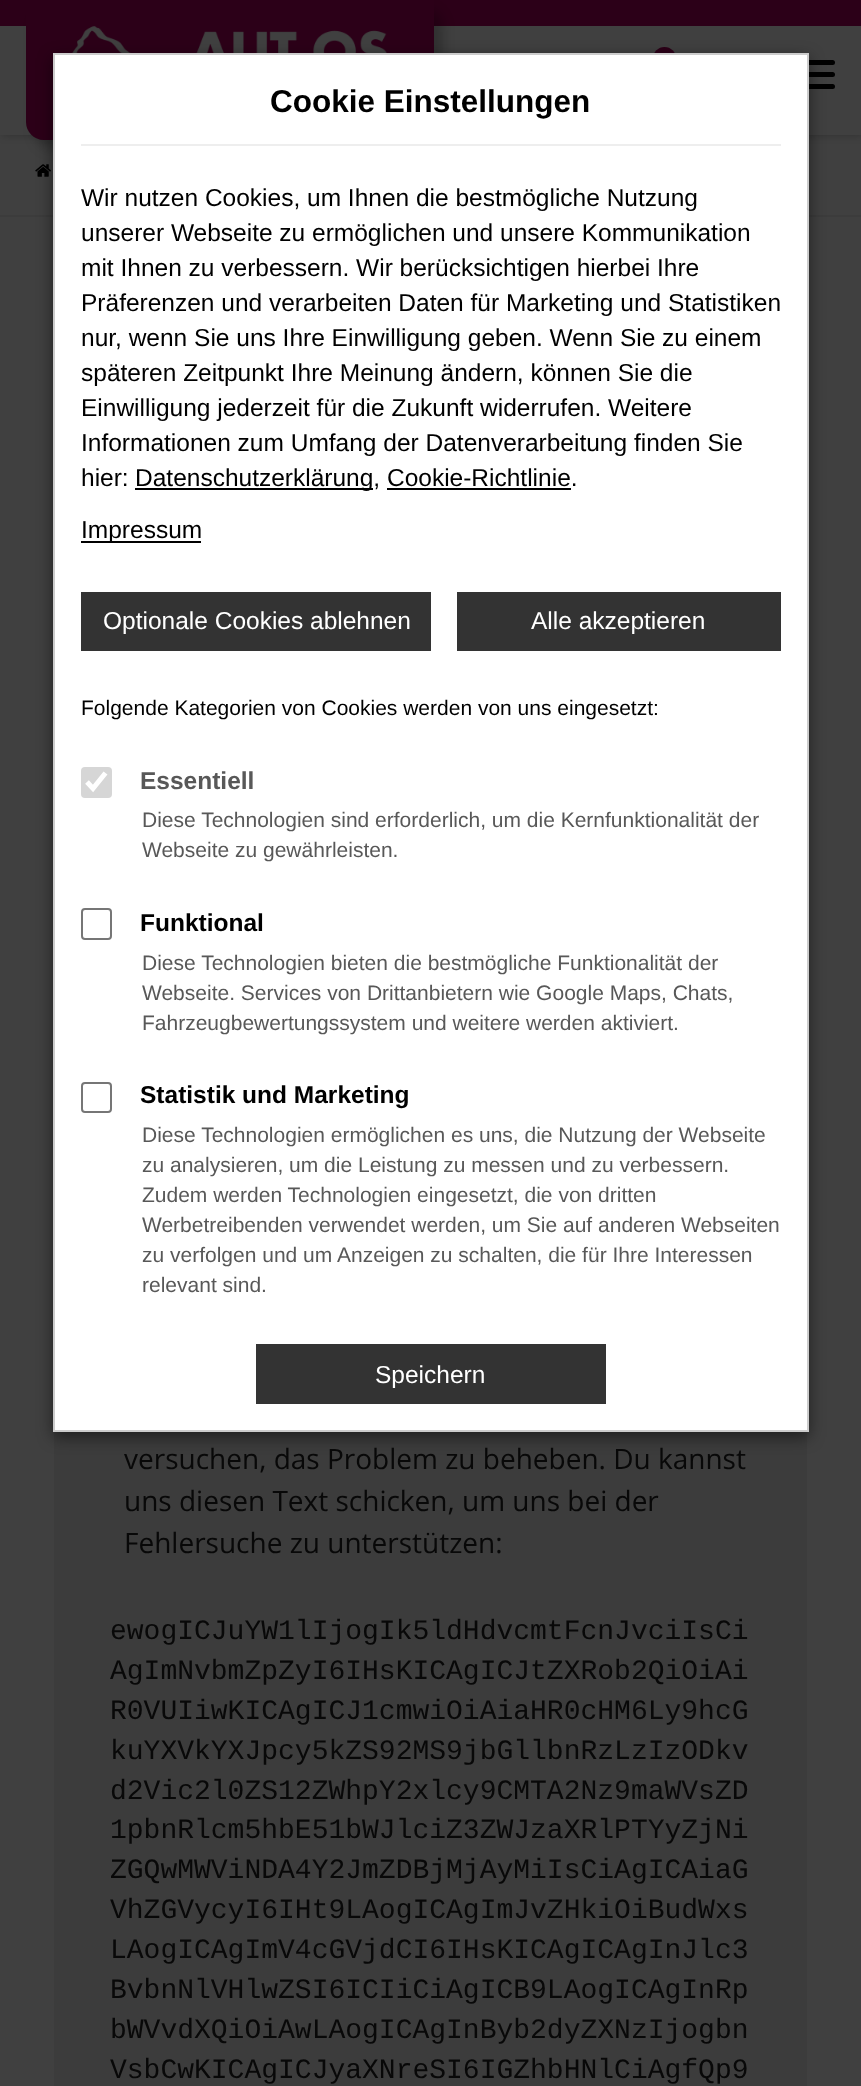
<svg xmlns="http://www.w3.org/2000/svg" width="861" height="2086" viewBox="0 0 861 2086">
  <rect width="100%" height="100%" fill="rgb(64,64,64)"/>
  <rect x="2" y="0" width="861" height="135" fill="rgba(0,0,0,0.25)" filter="blur(4.5px)"/>
  <rect x="0" y="26" width="861" height="109" fill="rgb(64,64,64)"/>
  <rect x="0" y="0" width="861" height="26" fill="rgb(44,0,24)"/>
  <image x="35" y="164" width="16" height="13" href="pic2.png"/>
  <rect x="35" y="9" width="408" height="140" rx="18" fill="rgba(0,0,0,0.24)" filter="blur(6px)"/>
  <path d="M26 0H434V122C434 132 426 140 416 140H44C34 140 26 132 26 122Z" fill="rgb(44,0,24)"/>
  <image x="72" y="26" width="315" height="27" href="pic1.png"/>
  <circle cx="664.5" cy="58.5" r="11.5" fill="rgb(44,0,24)"/>
  <rect x="782" y="72" width="53" height="5" rx="2.5" fill="rgb(0,0,0)"/>
  <rect x="782" y="60" width="53" height="5" rx="2.5" fill="rgb(0,0,0)"/>
  <rect x="782" y="84" width="53" height="5" rx="2.5" fill="rgb(0,0,0)"/>
  <rect x="0" y="215" width="861" height="2" fill="rgb(60,60,60)"/>
  <rect x="54" y="1432" width="753" height="654" fill="rgb(60,60,60)"/>
  <rect x="53" y="58" width="756" height="1379" fill="rgba(0,0,0,0.5)" filter="blur(8px)"/>
  <rect x="54" y="54" width="754" height="1377" fill="rgb(255,255,255)" stroke="rgb(204,204,204)" stroke-width="2"/>
  <rect x="81" y="144" width="700" height="2" fill="rgb(238,238,238)"/>
  <text x="270" y="112" font-family="Liberation Sans" font-size="31.5" font-weight="bold" fill="rgb(0,0,0)">Cookie Einstellungen</text>
  <g font-family="Liberation Sans" font-size="24.5" fill="rgb(0,0,0)">
    <text>
      <tspan x="81" y="206">Wir nutzen Cookies, um Ihnen die bestmögliche Nutzung</tspan>
      <tspan x="81" y="241">unserer Webseite zu ermöglichen und unsere Kommunikation</tspan>
      <tspan x="81" y="276">mit Ihnen zu verbessern. Wir berücksichtigen hierbei Ihre</tspan>
      <tspan x="81" y="311">Präferenzen und verarbeiten Daten für Marketing und Statistiken</tspan>
      <tspan x="81" y="346">nur, wenn Sie uns Ihre Einwilligung geben. Wenn Sie zu einem</tspan>
      <tspan x="81" y="381">späteren Zeitpunkt Ihre Meinung ändern, können Sie die</tspan>
      <tspan x="81" y="416">Einwilligung jederzeit für die Zukunft widerrufen. Weitere</tspan>
      <tspan x="81" y="451">Informationen zum Umfang der Datenverarbeitung finden Sie</tspan>
      <tspan x="81" y="486">hier:</tspan>
    </text>
  </g>
  <rect x="135" y="488" width="238" height="2" fill="rgb(0,0,0)"/>
  <text x="135" y="486" font-family="Liberation Sans" font-size="24.5" fill="rgb(0,0,0)">Datenschutzerklärung, Cookie-Richtlinie.</text>
  <rect x="387" y="488" width="184" height="2" fill="rgb(0,0,0)"/>
  <rect x="81" y="541" width="120" height="2" fill="rgb(0,0,0)"/>
  <text x="81" y="538" font-family="Liberation Sans" font-size="24.5" fill="rgb(0,0,0)">Impressum</text>
  <rect x="81" y="592" width="350" height="59" fill="rgb(51,51,51)"/>
  <text x="103" y="629" font-family="Liberation Sans" font-size="24.5" fill="rgb(255,255,255)">Optionale Cookies ablehnen</text>
  <rect x="457" y="592" width="324" height="59" fill="rgb(51,51,51)"/>
  <text x="531" y="629" font-family="Liberation Sans" font-size="24.5" fill="rgb(255,255,255)">Alle akzeptieren</text>
  <text x="81" y="715" font-family="Liberation Sans" font-size="21" fill="rgb(0,0,0)">Folgende Kategorien von Cookies werden von uns eingesetzt:</text>
  <rect x="81" y="767" width="31" height="31" rx="4" fill="rgb(214,214,214)"/>
  <path d="M87 782L93 788.5L105.5 773" fill="none" stroke="rgb(255,255,255)" stroke-width="5"/>
  <text x="140" y="789" font-family="Liberation Sans" font-size="24.5" font-weight="bold" fill="rgb(88,88,88)">Essentiell</text>
  <g font-family="Liberation Sans" font-size="21" fill="rgb(88,88,88)">
    <text>
      <tspan x="142" y="827">Diese Technologien sind erforderlich, um die Kernfunktionalität der</tspan>
      <tspan x="142" y="857">Webseite zu gewährleisten.</tspan>
    </text>
  </g>
  <rect x="82" y="909" width="29" height="30" rx="3" fill="none" stroke="rgb(118,118,118)" stroke-width="2"/>
  <text x="140" y="931" font-family="Liberation Sans" font-size="24.5" font-weight="bold" fill="rgb(0,0,0)">Funktional</text>
  <g font-family="Liberation Sans" font-size="21" fill="rgb(88,88,88)">
    <text>
      <tspan x="142" y="970">Diese Technologien bieten die bestmögliche Funktionalität der</tspan>
      <tspan x="142" y="1000">Webseite. Services von Drittanbietern wie Google Maps, Chats,</tspan>
      <tspan x="142" y="1030">Fahrzeugbewertungssystem und weitere werden aktiviert.</tspan>
    </text>
  </g>
  <rect x="82" y="1083" width="29" height="29" rx="3" fill="none" stroke="rgb(118,118,118)" stroke-width="2"/>
  <text x="140" y="1103" font-family="Liberation Sans" font-size="24.5" font-weight="bold" fill="rgb(0,0,0)">Statistik und Marketing</text>
  <g font-family="Liberation Sans" font-size="21" fill="rgb(88,88,88)">
    <text>
      <tspan x="142" y="1142">Diese Technologien ermöglichen es uns, die Nutzung der Webseite</tspan>
      <tspan x="142" y="1172">zu analysieren, um die Leistung zu messen und zu verbessern.</tspan>
      <tspan x="142" y="1202">Zudem werden Technologien eingesetzt, die von dritten</tspan>
      <tspan x="142" y="1232">Werbetreibenden verwendet werden, um Sie auf anderen Webseiten</tspan>
      <tspan x="142" y="1262">zu verfolgen und um Anzeigen zu schalten, die für Ihre Interessen</tspan>
      <tspan x="142" y="1292">relevant sind.</tspan>
    </text>
  </g>
  <rect x="256" y="1344" width="350" height="60" fill="rgb(51,51,51)"/>
  <text x="375" y="1383" font-family="Liberation Sans" font-size="24.5" fill="rgb(255,255,255)">Speichern</text>
  <g font-family="Open Sans" font-size="28" fill="rgb(8,8,8)">
    <text>
      <tspan x="124" y="1469">versuchen, das Problem zu beheben. Du kannst</tspan>
      <tspan x="124" y="1511">uns diesen Text schicken, um uns bei der</tspan>
      <tspan x="124" y="1553">Fehlersuche zu unterstützen:</tspan>
    </text>
  </g>
  <g font-family="Liberation Mono" font-size="28" fill="rgb(8,8,8)">
    <text>
      <tspan x="110" y="1639">ewogICJuYW1lIjogIk5ldHdvcmtFcnJvciIsCi</tspan>
      <tspan x="110" y="1679">AgImNvbmZpZyI6IHsKICAgICJtZXRob2QiOiAi</tspan>
      <tspan x="110" y="1719">R0VUIiwKICAgICJ1cmwiOiAiaHR0cHM6Ly9hcG</tspan>
      <tspan x="110" y="1759">kuYXVkYXJpcy5kZS92MS9jbGllbnRzLzIzODkv</tspan>
      <tspan x="110" y="1799">d2Vic2l0ZS12ZWhpY2xlcy9CMTA2Nz9maWVsZD</tspan>
      <tspan x="110" y="1838">1pbnRlcm5hbE51bWJlciZ3ZWJzaXRlPTYyZjNi</tspan>
      <tspan x="110" y="1878">ZGQwMWViNDA4Y2JmZDBjMjAyMiIsCiAgICAiaG</tspan>
      <tspan x="110" y="1918">VhZGVycyI6IHt9LAogICAgImJvZHkiOiBudWxs</tspan>
      <tspan x="110" y="1958">LAogICAgImV4cGVjdCI6IHsKICAgICAgInJlc3</tspan>
      <tspan x="110" y="1998">BvbnNlVHlwZSI6ICIiCiAgICB9LAogICAgInRp</tspan>
      <tspan x="110" y="2038">bWVvdXQiOiAwLAogICAgInByb2dyZXNzIjogbn</tspan>
      <tspan x="110" y="2078">VsbCwKICAgICJyaXNreSI6IGZhbHNlCiAgfQp9</tspan>
    </text>
  </g>
</svg>
